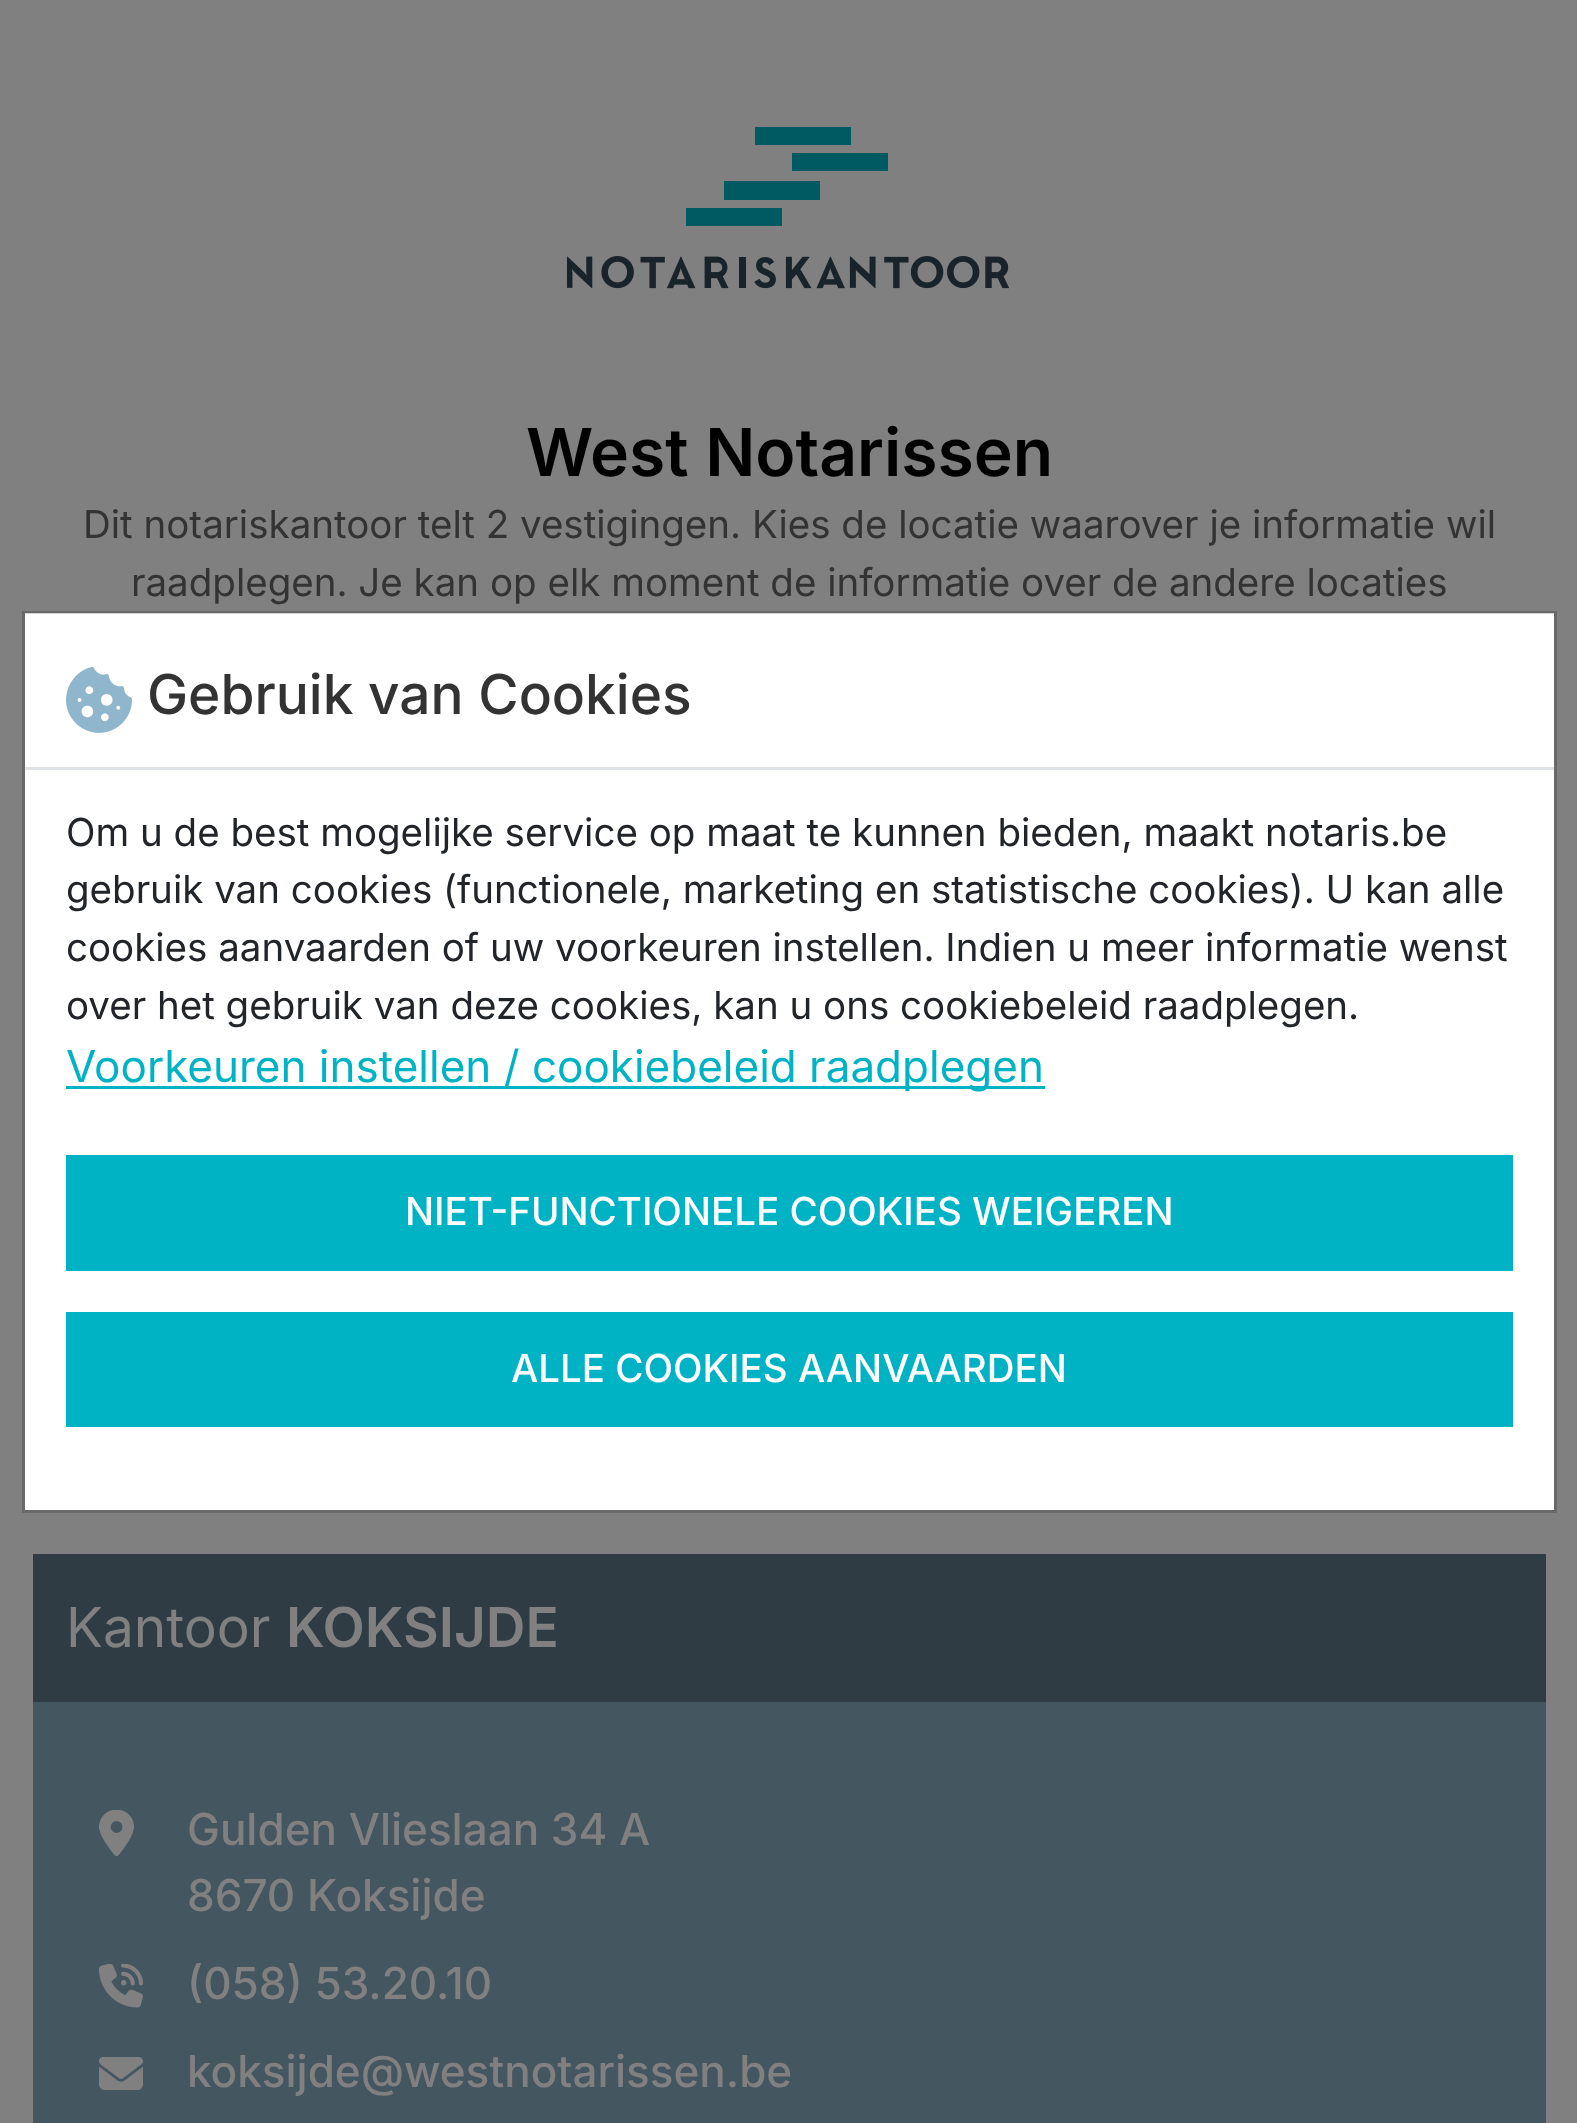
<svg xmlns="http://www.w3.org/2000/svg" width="1577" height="2123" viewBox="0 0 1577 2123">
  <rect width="100%" height="100%" fill="rgb(128,128,128)"/>
  <image x="567" y="127" width="442" height="162" href="pic1.png"/>
  <text x="526" y="476" font-family="Inter" font-size="66" font-weight="600" fill="rgb(0,0,0)">West Notarissen</text>
  <g font-family="Inter" font-size="38.5" fill="rgb(51,51,51)">
    <text x="83" y="538">Dit notariskantoor telt 2 vestigingen. Kies de locatie waarover je informatie wil</text>
    <text x="131" y="596">raadplegen. Je kan op elk moment de informatie over de andere locaties</text>
  </g>
  <rect x="33" y="1554" width="1513" height="148" fill="rgb(47,60,67)"/>
  <text x="66" y="1647" font-family="Inter" font-size="55" fill="rgb(128,128,128)">Kantoor</text>
  <text x="286" y="1647" font-family="Inter" font-size="55" font-weight="600" fill="rgb(128,128,128)">KOKSIJDE</text>
  <rect x="33" y="1702" width="1513" height="421" fill="rgb(68,86,96)"/>
  <image x="99" y="1810" width="35" height="46" href="pic2.png"/>
  <g font-family="Inter" font-size="44" font-weight="500" fill="rgb(128,128,128)">
    <text>
      <tspan x="187" y="1845">Gulden Vlieslaan 34 A</tspan>
      <tspan x="187" y="1911">8670 Koksijde</tspan>
    </text>
  </g>
  <image x="99" y="1964" width="44" height="44" href="pic3.png"/>
  <text x="187" y="1999" font-family="Inter" font-size="44" font-weight="500" fill="rgb(128,128,128)">(058) 53.20.10</text>
  <image x="99" y="2057" width="44" height="33" href="pic4.png"/>
  <text x="187" y="2087" font-family="Inter" font-size="44" font-weight="500" fill="rgb(128,128,128)">koksijde@westnotarissen.be</text>
  <rect x="25" y="613" width="1529" height="897" fill="rgb(255,255,255)"/>
  <rect x="23.5" y="612.5" width="1532" height="899" fill="none" stroke="rgba(0,0,0,0.18)" stroke-width="3"/>
  <rect x="25" y="767" width="1529" height="3" fill="rgb(222,226,230)"/>
  <image x="66" y="667" width="66" height="66" href="pic5.png"/>
  <text x="147" y="714" font-family="Inter" font-size="55" font-weight="500" fill="rgb(51,51,51)">Gebruik van Cookies</text>
  <g font-family="Inter" font-size="38.5" fill="rgb(33,37,41)">
    <text>
      <tspan x="66" y="846">Om u de best mogelijke service op maat te kunnen bieden, maakt notaris.be</tspan>
      <tspan x="66" y="903">gebruik van cookies (functionele, marketing en statistische cookies). U kan alle</tspan>
      <tspan x="66" y="961">cookies aanvaarden of uw voorkeuren instellen. Indien u meer informatie wenst</tspan>
      <tspan x="66" y="1019">over het gebruik van deze cookies, kan u ons cookiebeleid raadplegen.</tspan>
    </text>
  </g>
  <rect x="66" y="1086" width="979" height="3" fill="rgb(0,179,196)"/>
  <text x="66" y="1082" font-family="Inter" font-size="44" fill="rgb(0,179,196)">Voorkeuren instellen / cookiebeleid raadplegen</text>
  <rect x="66" y="1155" width="1447" height="116" fill="rgb(0,179,196)"/>
  <text x="405" y="1225" font-family="Inter" font-size="38.5" font-weight="500" fill="rgb(255,255,255)">NIET-FUNCTIONELE COOKIES WEIGEREN</text>
  <rect x="66" y="1312" width="1447" height="115" fill="rgb(0,179,196)"/>
  <text x="511" y="1382" font-family="Inter" font-size="38.5" font-weight="500" fill="rgb(255,255,255)">ALLE COOKIES AANVAARDEN</text>
</svg>
